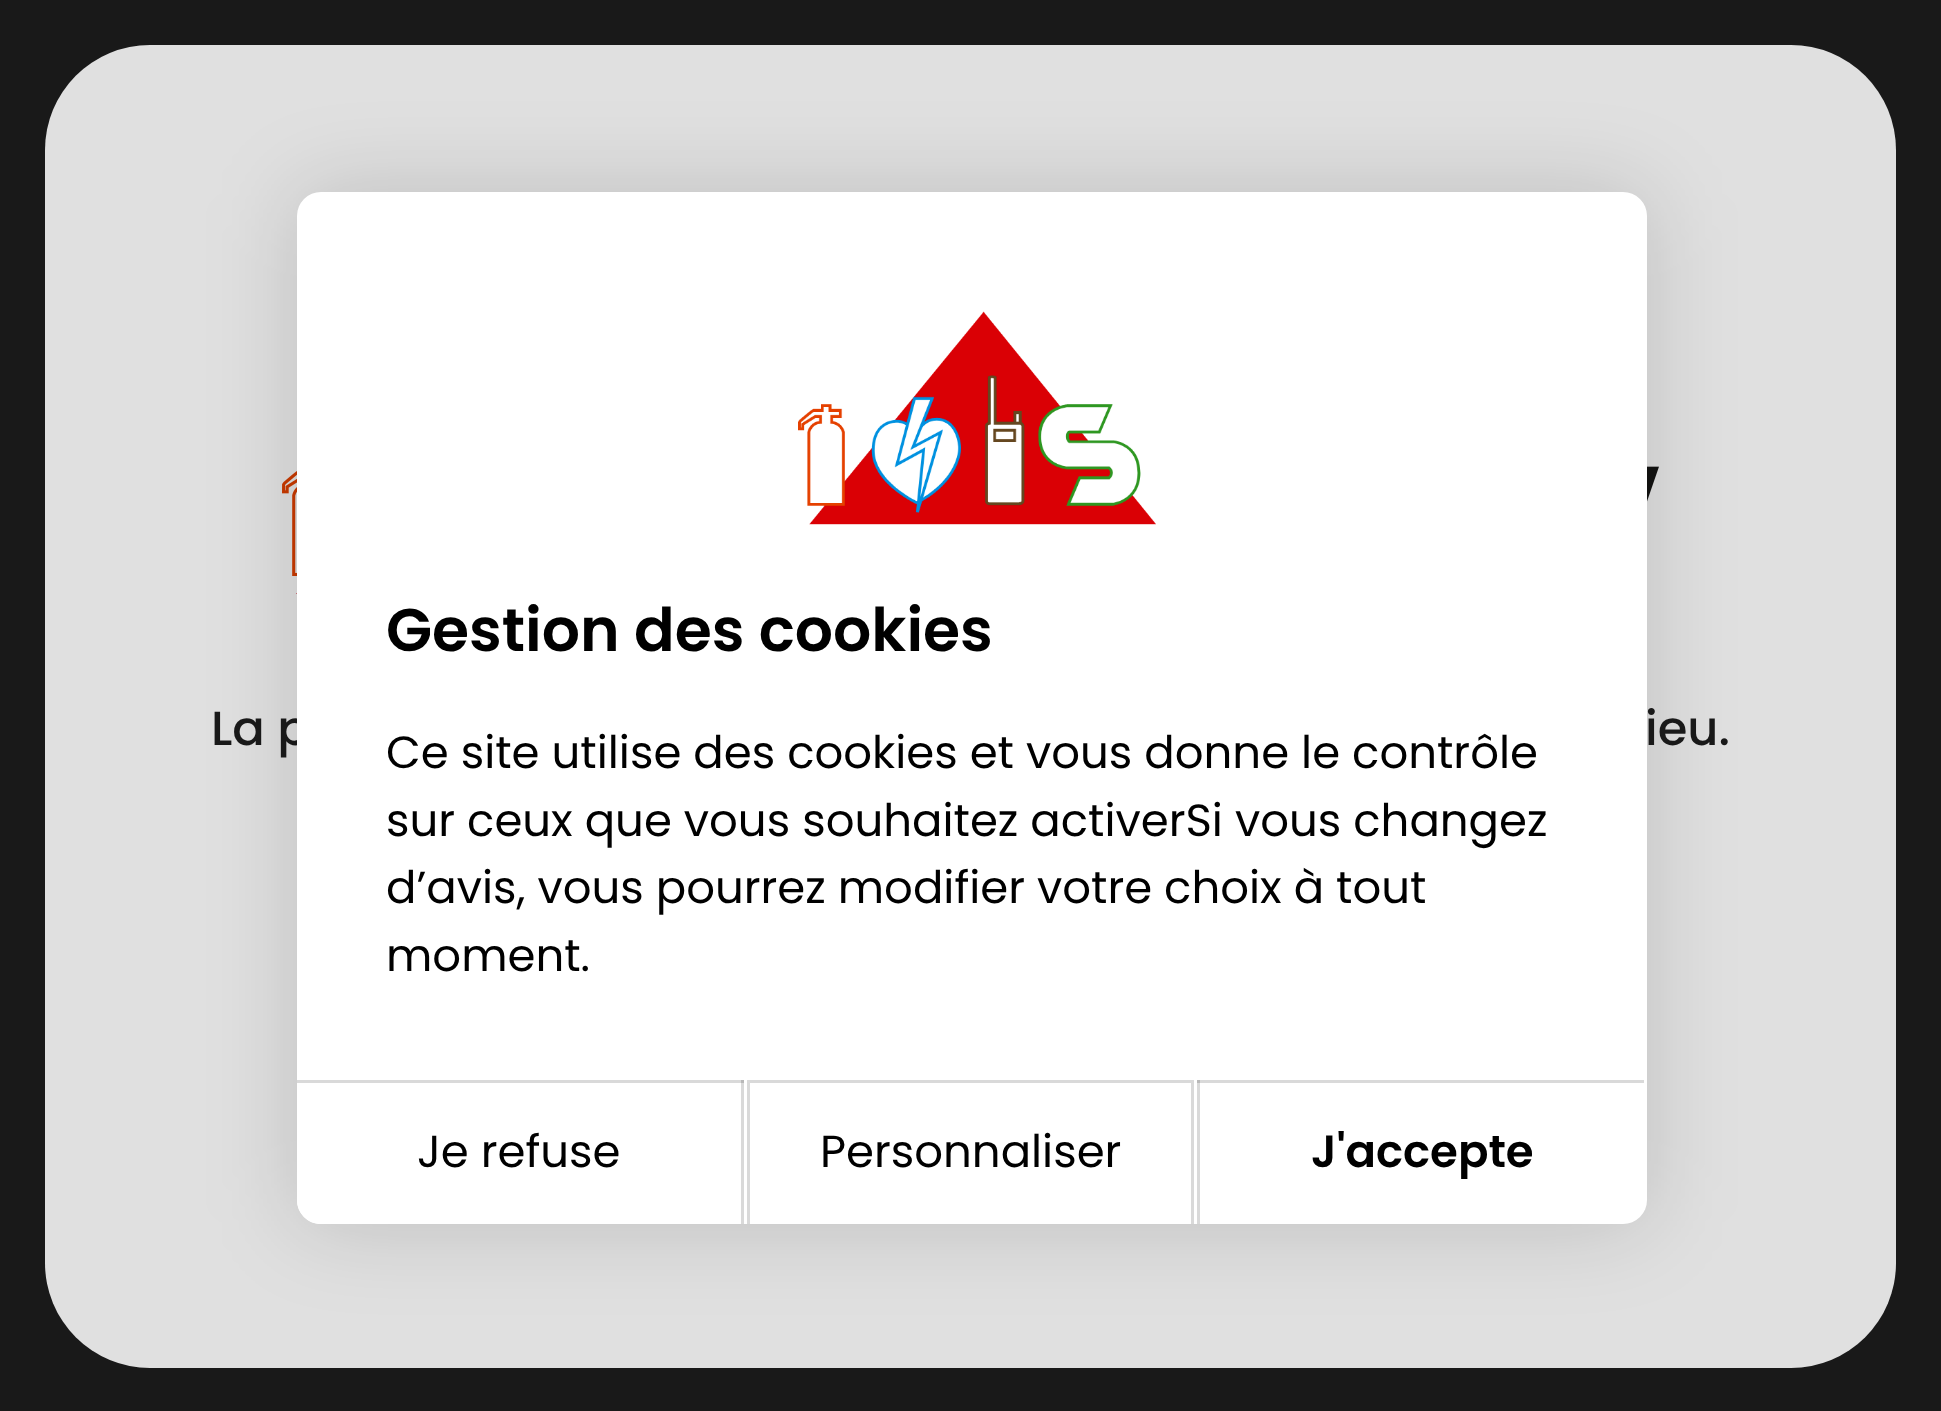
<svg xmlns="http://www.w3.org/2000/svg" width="1941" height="1411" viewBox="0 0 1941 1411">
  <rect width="100%" height="100%" fill="rgb(25,25,25)"/>
  <rect x="45" y="45" width="1851" height="1323" rx="105" fill="rgb(224,224,224)"/>
  <image x="282" y="466" width="1377" height="128" href="pic2.png"/>
  <rect x="297" y="192" width="1350" height="1032" rx="24" fill="rgba(0,0,0,0.15)" filter="blur(45px)"/>
  <text x="211" y="745" font-family="Poppins" font-size="48" font-weight="500" fill="rgb(25,25,25)">La p</text>
  <rect x="297" y="192" width="1350" height="1032" rx="24" fill="rgb(255,255,255)"/>
  <image x="798" y="311" width="358" height="214" href="pic1.png"/>
  <text x="386" y="651" font-family="Poppins" font-size="60" font-weight="600" fill="rgb(0,0,0)">Gestion des cookies</text>
  <g font-family="Poppins" font-size="45" fill="rgb(0,0,0)">
    <text>
      <tspan x="386" y="768">Ce site utilise des cookies et vous donne le contrôle</tspan>
      <tspan x="386" y="836">sur ceux que vous souhaitez activerSi vous changez</tspan>
      <tspan x="386" y="903">d’avis, vous pourrez modifier votre choix à tout</tspan>
      <tspan x="386" y="971">moment.</tspan>
    </text>
  </g>
  <path d="M297 1080H744V1224H321C307.5 1224 297 1213.5 297 1200Z" fill="rgb(255,255,255)"/>
  <rect x="297" y="1080" width="447" height="3" fill="rgb(217,217,217)"/>
  <rect x="741" y="1080" width="3" height="144" fill="rgba(0,0,0,0.15)"/>
  <text x="417" y="1167" font-family="Poppins" font-size="45" fill="rgb(0,0,0)">Je refuse</text>
  <path d="M747 1080H1194L1191 1083H750Z" fill="rgb(217,217,217)"/>
  <path d="M1194 1080V1224H1191V1083Z" fill="rgba(0,0,0,0.15)"/>
  <path d="M747 1224V1080L750 1083V1224Z" fill="rgba(0,0,0,0.15)"/>
  <text x="820" y="1167" font-family="Poppins" font-size="45" fill="rgb(0,0,0)">Personnaliser</text>
  <rect x="1197" y="1080" width="447" height="3" fill="rgb(217,217,217)"/>
  <rect x="1197" y="1080" width="3" height="144" fill="rgba(0,0,0,0.15)"/>
  <text x="1311" y="1167" font-family="Poppins" font-size="45" font-weight="600" fill="rgb(0,0,0)">J'accepte</text>
  <text x="1645" y="745" font-family="Poppins" font-size="48" font-weight="500" fill="rgb(25,25,25)">ieu.</text>
</svg>
